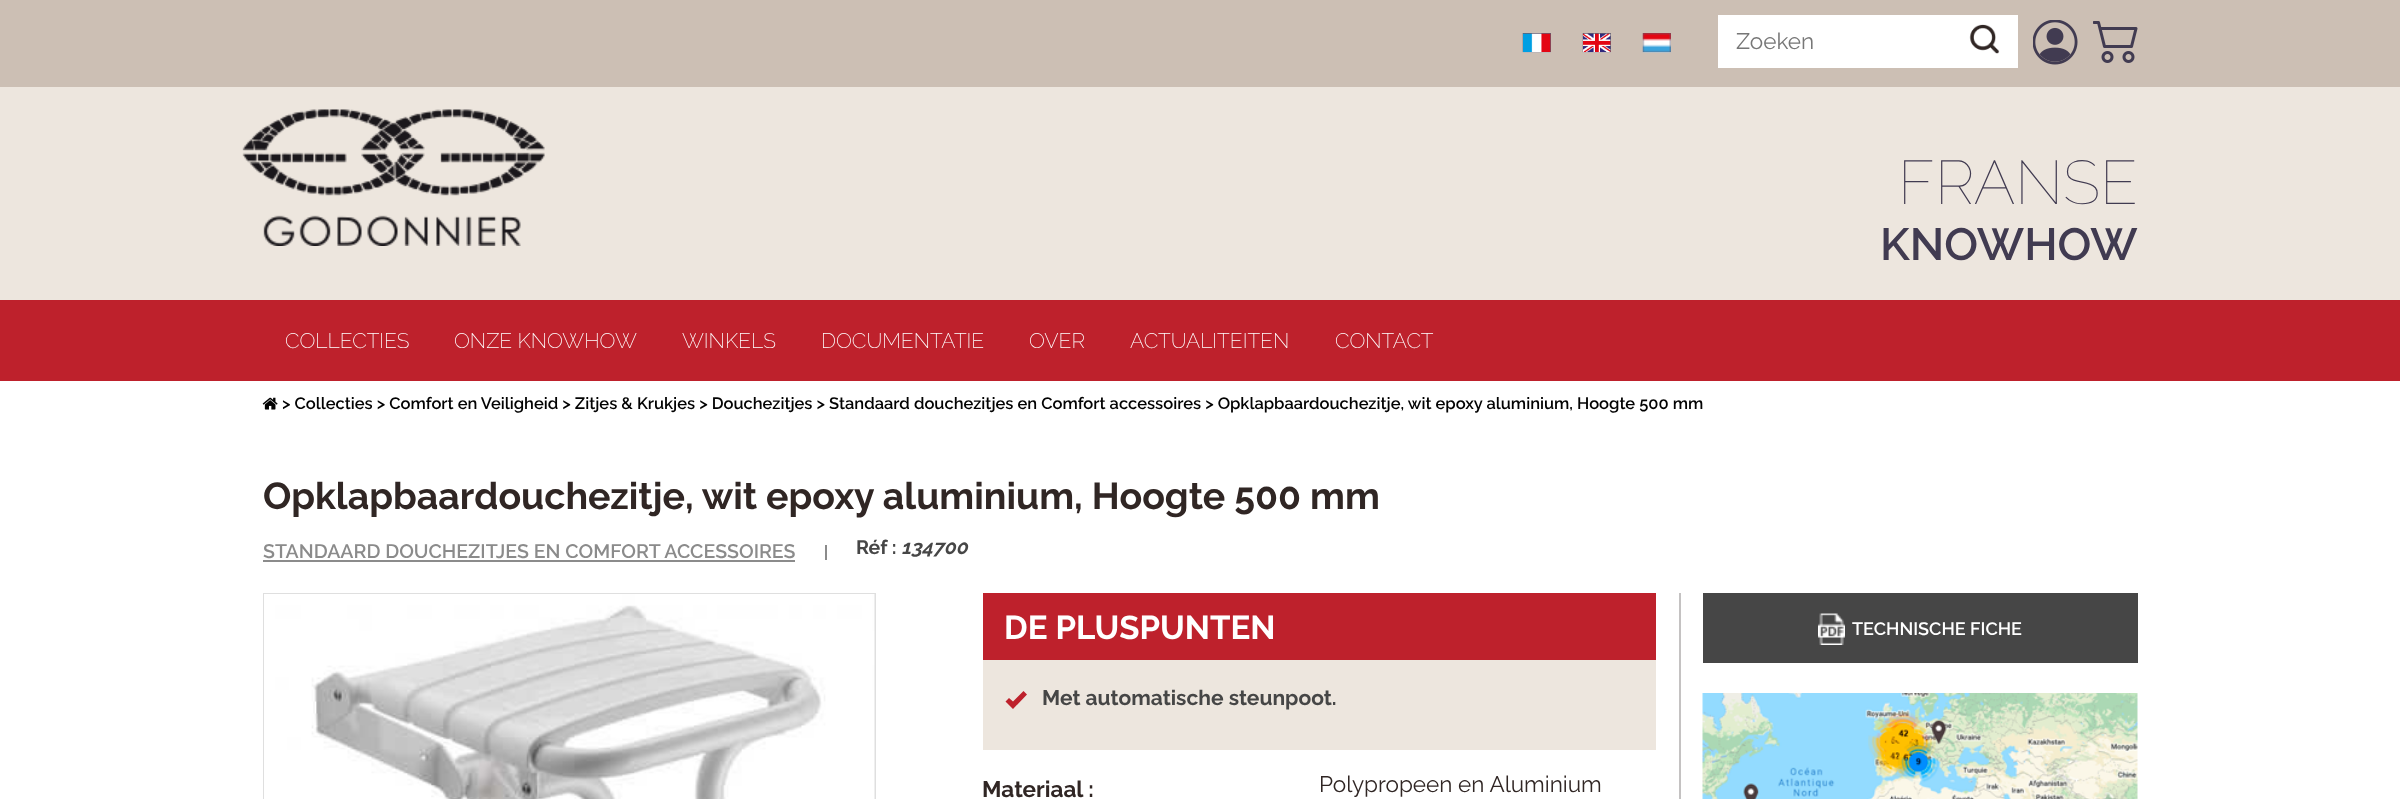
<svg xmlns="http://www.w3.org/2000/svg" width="2400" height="799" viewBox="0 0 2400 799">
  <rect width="100%" height="100%" fill="rgb(255,255,255)"/>
  <rect x="0" y="0" width="2400" height="87" fill="rgb(204,191,180)"/>
  <image x="1522" y="33" width="29" height="20" href="pic1.png"/>
  <image x="1582" y="33" width="29" height="20" href="pic2.png"/>
  <image x="1642" y="33" width="29" height="20" href="pic3.png"/>
  <rect x="1718" y="15" width="300" height="53" fill="rgb(255,255,255)"/>
  <text x="1736" y="49" font-family="Raleway" font-size="22.5" fill="rgb(119,119,119)">Zoeken</text>
  <image x="1969" y="24" width="31" height="30" href="pic4.png"/>
  <image x="2033" y="20" width="45" height="45" href="pic5.png"/>
  <image x="2093" y="21" width="45" height="42" href="pic6.png"/>
  <rect x="0" y="87" width="2400" height="213" fill="rgb(237,230,222)"/>
  <image x="242" y="109" width="303" height="137" href="pic7.png"/>
  <text x="1898" y="204" font-family="Raleway" font-size="61.5" font-weight="100" fill="rgb(65,59,81)">FRANSE</text>
  <text x="1880" y="260" font-family="Raleway" font-size="45" font-weight="600" fill="rgb(65,59,81)">KNOWHOW</text>
  <rect x="0" y="300" width="2400" height="81" fill="rgb(190,33,44)"/>
  <g font-family="Raleway" font-size="21" font-weight="200" fill="rgb(255,255,255)">
    <text x="285" y="348">COLLECTIES</text>
    <text x="454" y="348">ONZE KNOWHOW</text>
    <text x="682" y="348">WINKELS</text>
    <text x="821" y="348">DOCUMENTATIE</text>
    <text x="1029" y="348">OVER</text>
    <text x="1130" y="348">ACTUALITEITEN</text>
    <text x="1335" y="348">CONTACT</text>
  </g>
  <image x="262" y="397" width="16" height="13" href="pic8.png"/>
  <text x="282" y="409" font-family="Raleway" font-size="16.5" font-weight="600" fill="rgb(2,2,2)">&gt; Collecties &gt; Comfort en Veiligheid &gt; Zitjes &amp; Krukjes &gt; Douchezitjes &gt; Standaard douchezitjes en Comfort accessoires &gt; Opklapbaardouchezitje, wit epoxy aluminium, Hoogte 500 mm</text>
  <text x="263" y="509" font-family="Raleway" font-size="37.5" font-weight="bold" fill="rgb(48,38,36)">Opklapbaardouchezitje, wit epoxy aluminium, Hoogte 500 mm</text>
  <text x="263" y="558" font-family="Raleway" font-size="19.5" font-weight="600" fill="rgb(139,139,139)">STANDAARD DOUCHEZITJES EN COMFORT ACCESSOIRES</text>
  <rect x="263" y="560" width="532" height="2" fill="rgb(139,139,139)"/>
  <rect x="825" y="545" width="2" height="15" fill="rgb(139,139,139)"/>
  <text x="856" y="554" font-family="Raleway" font-size="19.5" font-weight="bold" fill="rgb(70,70,70)">Réf :</text>
  <text x="901" y="554" font-family="Raleway" font-size="19.5" font-weight="bold" font-style="italic" fill="rgb(70,70,70)">134700</text>
  <rect x="1679" y="593" width="2" height="206" fill="rgb(196,194,194)"/>
  <rect x="264" y="594" width="611" height="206" fill="none" stroke="rgb(223,223,223)" stroke-width="2"/>
  <image x="264" y="594" width="611" height="205" href="pic9.png"/>
  <rect x="983" y="593" width="673" height="67" fill="rgb(190,33,44)"/>
  <text x="1004" y="639" font-family="Raleway" font-size="33" font-weight="bold" fill="rgb(255,255,255)">DE PLUSPUNTEN</text>
  <rect x="983" y="660" width="673" height="90" fill="rgb(237,230,222)"/>
  <path d="M1005.5 701.5L1013 709L1027 694.5L1023.5 691L1013 701.5L1009 698Z" fill="rgb(190,33,44)"/>
  <text x="1042" y="705" font-family="Raleway" font-size="21" font-weight="bold" fill="rgb(70,70,70)">Met automatische steunpoot.</text>
  <text x="982" y="797" font-family="Raleway" font-size="22.5" font-weight="bold" fill="rgb(48,38,36)">Materiaal :</text>
  <text x="1319" y="792" font-family="Raleway" font-size="22.5" fill="rgb(48,38,36)">Polypropeen en Aluminium</text>
  <rect x="1703" y="593" width="435" height="70" fill="rgb(70,70,70)"/>
  <image x="1818" y="613" width="27" height="32" href="pic10.png"/>
  <text x="1852" y="635" font-family="Raleway" font-size="18" font-weight="600" fill="rgb(255,255,255)">TECHNISCHE FICHE</text>
  <image x="1702" y="693" width="436" height="106" href="pic11.png"/>
</svg>
